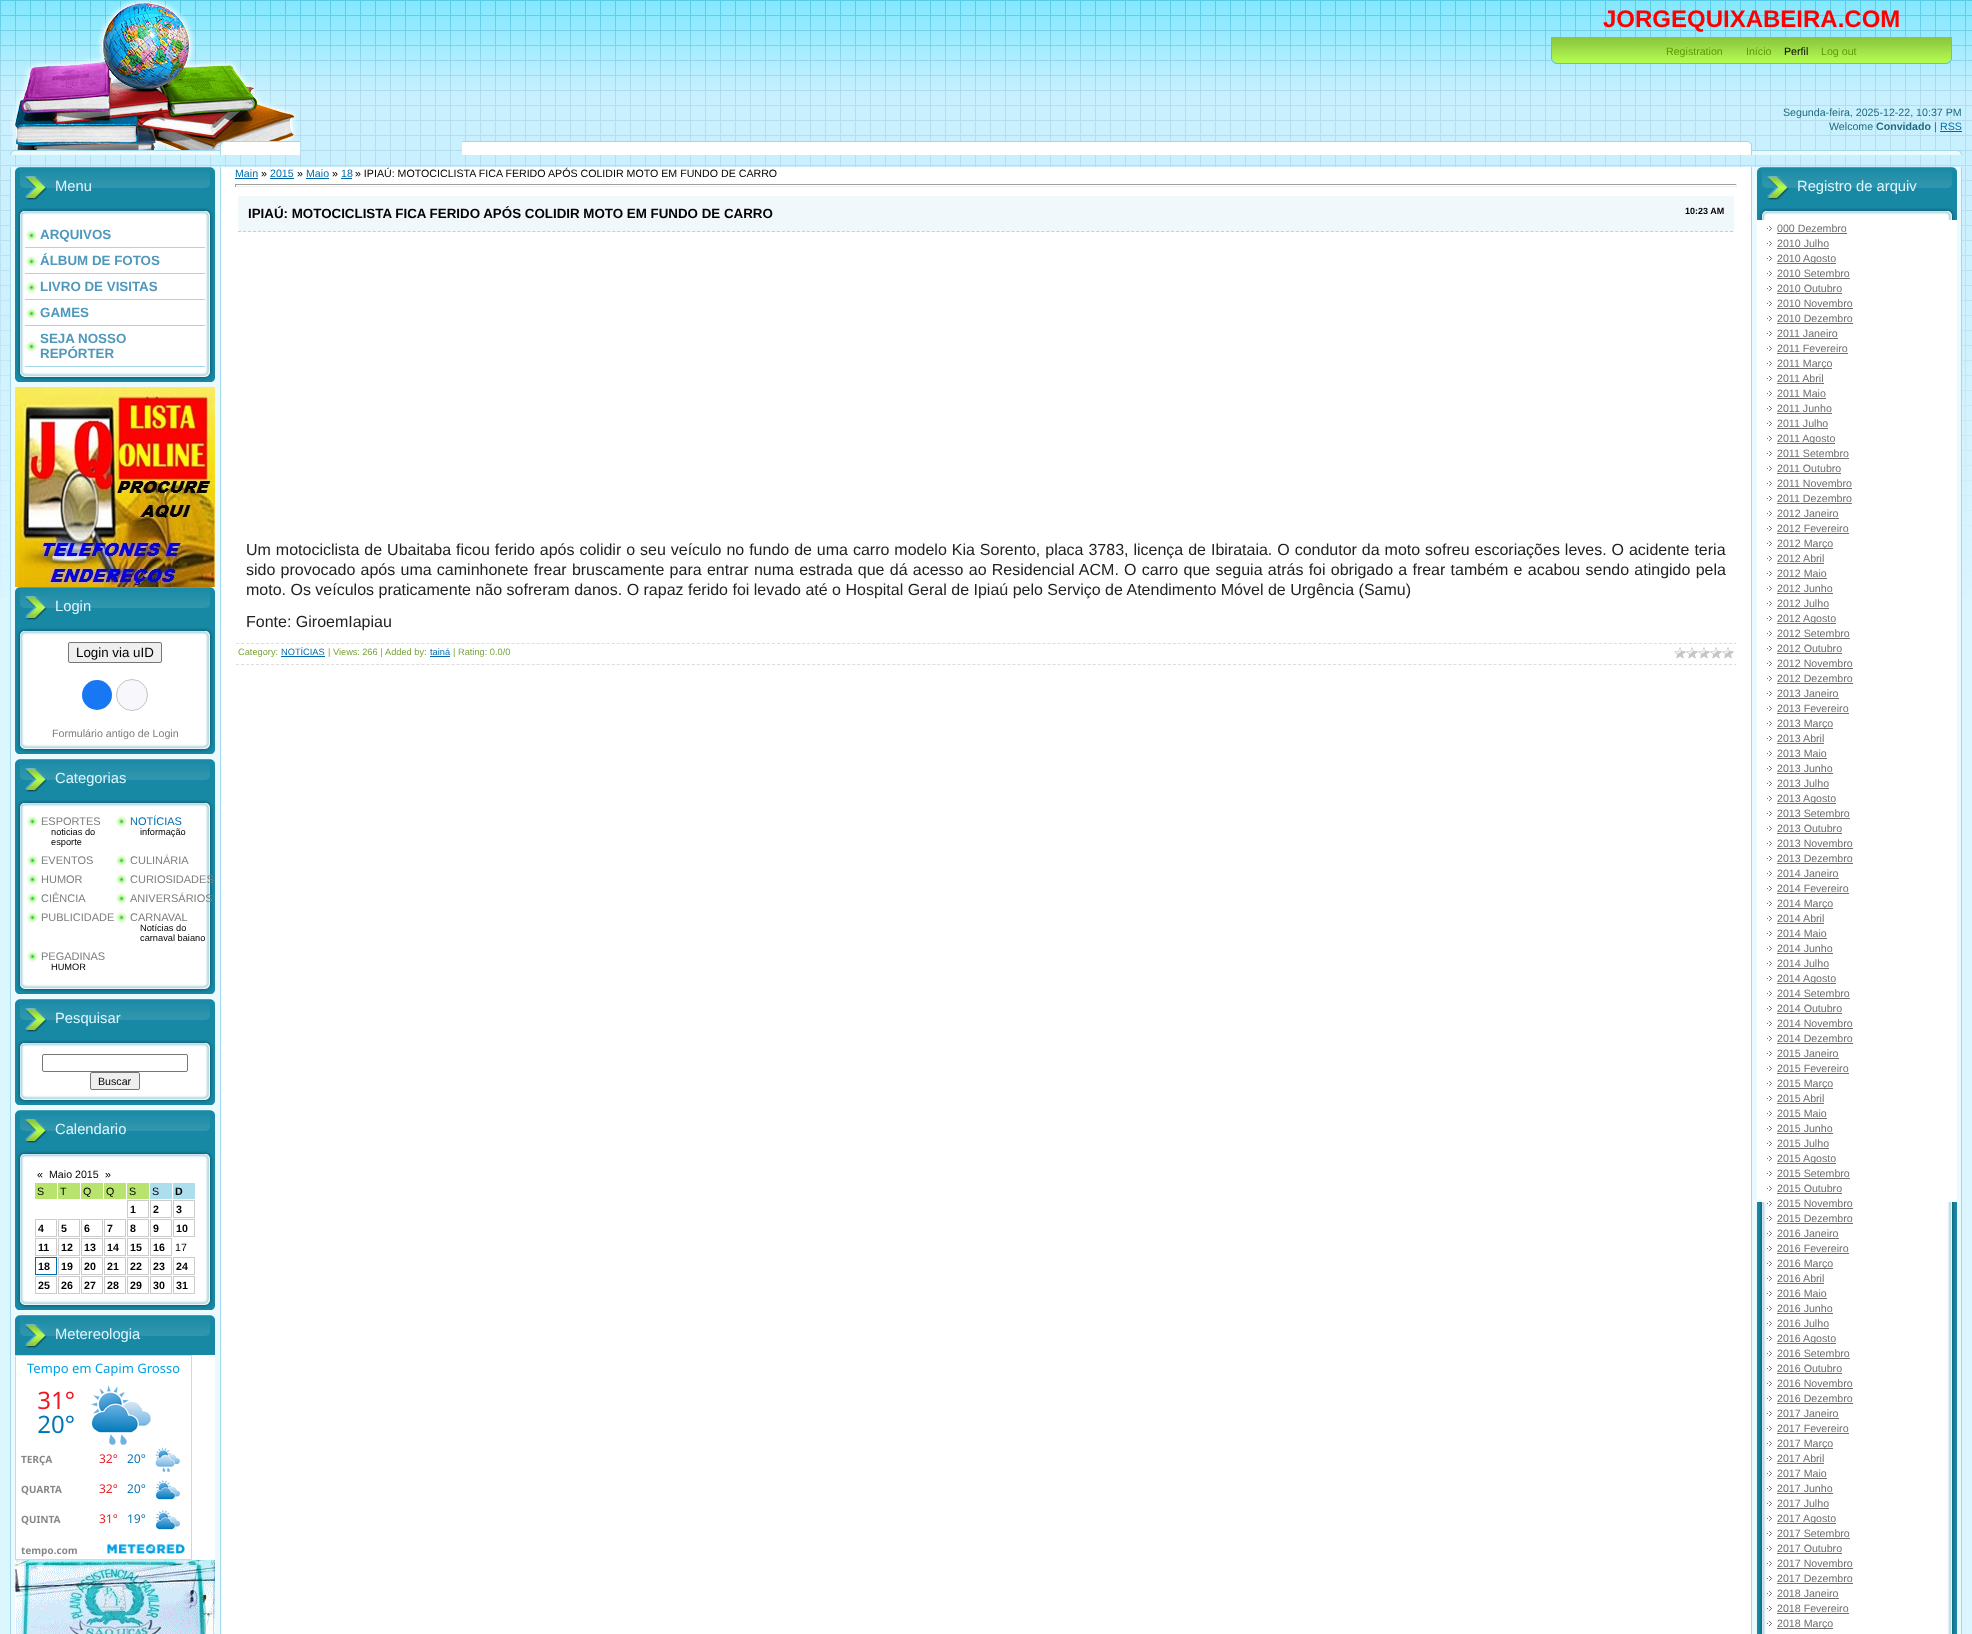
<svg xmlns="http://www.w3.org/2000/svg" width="1972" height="1634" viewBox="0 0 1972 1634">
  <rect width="100%" height="100%" fill="rgb(220,246,255)"/>
  <image x="0" y="0" width="1972" height="598" href="pic1.png"/>
  <image x="462" y="141" width="1500" height="14" href="pic2.png"/>
  <image x="10" y="0" width="290" height="155" href="pic3.png"/>
  <image x="1551" y="37" width="401" height="27" href="pic4.png"/>
  <text x="1603" y="27" font-family="Liberation Sans" font-size="24" font-weight="bold" fill="rgb(255,0,0)">JORGEQUIXABEIRA.COM</text>
  <g font-family="Liberation Sans" font-size="10.65" fill="rgb(89,155,0)">
    <text x="1666" y="55">Registration</text>
    <text x="1746" y="55">Início</text>
  </g>
  <text x="1784" y="55" font-family="Liberation Sans" font-size="10.65" fill="rgb(0,0,0)">Perfil</text>
  <text x="1821" y="55" font-family="Liberation Sans" font-size="10.65" fill="rgb(89,155,0)">Log out</text>
  <g font-family="Liberation Sans" font-size="10.65" fill="rgb(31,108,127)">
    <text x="1783" y="116">Segunda-feira, 2025-12-22, 10:37 PM</text>
    <text x="1829" y="130">Welcome</text>
  </g>
  <text x="1876" y="130" font-family="Liberation Sans" font-size="10.65" font-weight="bold" fill="rgb(31,108,127)">Convidado</text>
  <text x="1934" y="130" font-family="Liberation Sans" font-size="10.65" fill="rgb(31,108,127)">|</text>
  <text x="1940" y="130" font-family="Liberation Sans" font-size="10.65" fill="rgb(1,108,172)">RSS</text>
  <rect x="1940" y="131" width="22" height="1" fill="rgb(0,105,169)"/>
  <image x="10" y="167" width="215" height="1467" href="pic5.png"/>
  <image x="15" y="207" width="200" height="175" href="pic6.png"/>
  <rect x="15" y="200" width="200" height="7" fill="rgb(23,137,164)"/>
  <image x="15" y="167" width="200" height="33" href="pic7.png"/>
  <text x="55" y="191" font-family="Liberation Sans" font-size="14.75" fill="rgb(220,246,255)">Menu</text>
  <image x="17" y="207" width="196" height="13" href="pic8.png"/>
  <image x="25" y="229" width="12" height="12" href="pic9.png"/>
  <rect x="25" y="247" width="180" height="1" fill="rgb(162,215,236)"/>
  <text x="40" y="239" font-family="Liberation Sans" font-size="13.35" font-weight="bold" fill="rgb(79,152,188)">ARQUIVOS</text>
  <image x="25" y="255" width="12" height="12" href="pic9.png"/>
  <rect x="25" y="273" width="180" height="1" fill="rgb(162,215,236)"/>
  <text x="40" y="265" font-family="Liberation Sans" font-size="13.35" font-weight="bold" fill="rgb(79,152,188)">ÁLBUM DE FOTOS</text>
  <image x="25" y="281" width="12" height="12" href="pic9.png"/>
  <rect x="25" y="299" width="180" height="1" fill="rgb(162,215,236)"/>
  <text x="40" y="291" font-family="Liberation Sans" font-size="13.35" font-weight="bold" fill="rgb(79,152,188)">LIVRO DE VISITAS</text>
  <image x="25" y="307" width="12" height="12" href="pic9.png"/>
  <rect x="25" y="325" width="180" height="1" fill="rgb(162,215,236)"/>
  <text x="40" y="317" font-family="Liberation Sans" font-size="13.35" font-weight="bold" fill="rgb(79,152,188)">GAMES</text>
  <image x="25" y="340" width="12" height="12" href="pic9.png"/>
  <rect x="25" y="366" width="180" height="1" fill="rgb(162,215,236)"/>
  <g font-family="Liberation Sans" font-size="13.35" font-weight="bold" fill="rgb(79,152,188)">
    <text>
      <tspan x="40" y="343">SEJA NOSSO</tspan>
      <tspan x="40" y="358">REPÓRTER</tspan>
    </text>
  </g>
  <image x="15" y="387" width="200" height="200" href="pic10.png"/>
  <image x="15" y="627" width="200" height="127" href="pic11.png"/>
  <rect x="15" y="620" width="200" height="7" fill="rgb(23,137,164)"/>
  <image x="15" y="587" width="200" height="33" href="pic7.png"/>
  <text x="55" y="611" font-family="Liberation Sans" font-size="14.75" fill="rgb(220,246,255)">Login</text>
  <image x="17" y="627" width="196" height="13" href="pic8.png"/>
  <rect x="68.5" y="642.5" width="93" height="20" rx="1.5" fill="rgb(239,239,239)" stroke="rgb(118,118,118)"/>
  <text x="76" y="657" font-family="Liberation Sans" font-size="13.35" fill="rgb(0,0,0)">Login via uID</text>
  <circle cx="97" cy="695" r="15" fill="rgb(24,119,242)"/>
  <circle cx="132" cy="695" r="15.5" fill="rgb(248,248,252)" stroke="rgb(196,196,196)"/>
  <text x="52" y="737" font-family="Liberation Sans" font-size="10.65" fill="rgb(125,125,125)">Formulário antigo de Login</text>
  <image x="15" y="799" width="200" height="195" href="pic12.png"/>
  <rect x="15" y="792" width="200" height="7" fill="rgb(23,137,164)"/>
  <image x="15" y="759" width="200" height="33" href="pic7.png"/>
  <text x="55" y="783" font-family="Liberation Sans" font-size="14.75" fill="rgb(220,246,255)">Categorias</text>
  <image x="17" y="799" width="196" height="13" href="pic8.png"/>
  <image x="26" y="815" width="12" height="12" href="pic9.png"/>
  <text x="41" y="825" font-family="Liberation Sans" font-size="11" fill="rgb(125,125,125)">ESPORTES</text>
  <g font-family="Liberation Sans" font-size="9.25" fill="rgb(0,0,0)">
    <text>
      <tspan x="51" y="835">noticias do</tspan>
      <tspan x="51" y="845">esporte</tspan>
    </text>
  </g>
  <image x="115" y="815" width="12" height="12" href="pic9.png"/>
  <text x="130" y="825" font-family="Liberation Sans" font-size="11" fill="rgb(1,108,172)">NOTÍCIAS</text>
  <text x="140" y="835" font-family="Liberation Sans" font-size="9.25" fill="rgb(0,0,0)">informação</text>
  <image x="26" y="854" width="12" height="12" href="pic9.png"/>
  <text x="41" y="864" font-family="Liberation Sans" font-size="11" fill="rgb(125,125,125)">EVENTOS</text>
  <image x="115" y="854" width="12" height="12" href="pic9.png"/>
  <text x="130" y="864" font-family="Liberation Sans" font-size="11" fill="rgb(125,125,125)">CULINÁRIA</text>
  <image x="26" y="873" width="12" height="12" href="pic9.png"/>
  <text x="41" y="883" font-family="Liberation Sans" font-size="11" fill="rgb(125,125,125)">HUMOR</text>
  <image x="115" y="873" width="12" height="12" href="pic9.png"/>
  <text x="130" y="883" font-family="Liberation Sans" font-size="11" fill="rgb(125,125,125)">CURIOSIDADES</text>
  <image x="26" y="892" width="12" height="12" href="pic9.png"/>
  <text x="41" y="902" font-family="Liberation Sans" font-size="11" fill="rgb(125,125,125)">CIÊNCIA</text>
  <image x="115" y="892" width="12" height="12" href="pic9.png"/>
  <text x="130" y="902" font-family="Liberation Sans" font-size="11" fill="rgb(125,125,125)">ANIVERSÁRIOS</text>
  <image x="26" y="911" width="12" height="12" href="pic9.png"/>
  <text x="41" y="921" font-family="Liberation Sans" font-size="11" fill="rgb(125,125,125)">PUBLICIDADE</text>
  <image x="115" y="911" width="12" height="12" href="pic9.png"/>
  <text x="130" y="921" font-family="Liberation Sans" font-size="11" fill="rgb(125,125,125)">CARNAVAL</text>
  <g font-family="Liberation Sans" font-size="9.25" fill="rgb(0,0,0)">
    <text>
      <tspan x="140" y="931">Notícias do</tspan>
      <tspan x="140" y="941">carnaval baiano</tspan>
    </text>
  </g>
  <image x="26" y="950" width="12" height="12" href="pic9.png"/>
  <text x="41" y="960" font-family="Liberation Sans" font-size="11" fill="rgb(125,125,125)">PEGADINAS</text>
  <text x="51" y="970" font-family="Liberation Sans" font-size="9.25" fill="rgb(0,0,0)">HUMOR</text>
  <image x="15" y="1039" width="200" height="66" href="pic13.png"/>
  <rect x="15" y="1032" width="200" height="7" fill="rgb(23,137,164)"/>
  <image x="15" y="999" width="200" height="33" href="pic7.png"/>
  <text x="55" y="1023" font-family="Liberation Sans" font-size="14.75" fill="rgb(220,246,255)">Pesquisar</text>
  <image x="17" y="1039" width="196" height="13" href="pic8.png"/>
  <rect x="42.5" y="1054.5" width="145" height="17" rx="1.5" fill="none" stroke="rgb(118,118,118)"/>
  <rect x="90.5" y="1072.5" width="49" height="17" rx="1.5" fill="rgb(239,239,239)" stroke="rgb(118,118,118)"/>
  <text x="98" y="1085" font-family="Liberation Sans" font-size="10.65" fill="rgb(0,0,0)">Buscar</text>
  <image x="15" y="1150" width="200" height="160" href="pic14.png"/>
  <rect x="15" y="1143" width="200" height="7" fill="rgb(23,137,164)"/>
  <image x="15" y="1110" width="200" height="33" href="pic7.png"/>
  <text x="55" y="1134" font-family="Liberation Sans" font-size="14.75" fill="rgb(220,246,255)">Calendario</text>
  <image x="17" y="1150" width="196" height="13" href="pic8.png"/>
  <g font-family="Liberation Sans" font-size="10.65" fill="rgb(0,0,0)">
    <text x="37" y="1178">«</text>
    <text x="49" y="1178">Maio 2015</text>
    <text x="105" y="1178">»</text>
  </g>
  <rect x="35" y="1183" width="22" height="16" fill="rgb(183,227,110)"/>
  <text x="37" y="1195" font-family="Liberation Sans" font-size="10.65" fill="rgb(0,0,0)">S</text>
  <rect x="58" y="1183" width="22" height="16" fill="rgb(183,227,110)"/>
  <text x="60" y="1195" font-family="Liberation Sans" font-size="10.65" fill="rgb(0,0,0)">T</text>
  <rect x="81" y="1183" width="22" height="16" fill="rgb(183,227,110)"/>
  <text x="83" y="1195" font-family="Liberation Sans" font-size="10.65" fill="rgb(0,0,0)">Q</text>
  <rect x="104" y="1183" width="22" height="16" fill="rgb(183,227,110)"/>
  <text x="106" y="1195" font-family="Liberation Sans" font-size="10.65" fill="rgb(0,0,0)">Q</text>
  <rect x="127" y="1183" width="22" height="16" fill="rgb(183,227,110)"/>
  <text x="129" y="1195" font-family="Liberation Sans" font-size="10.65" fill="rgb(0,0,0)">S</text>
  <rect x="150" y="1183" width="22" height="16" fill="rgb(172,222,238)"/>
  <text x="152" y="1195" font-family="Liberation Sans" font-size="10.65" fill="rgb(0,0,0)">S</text>
  <rect x="173" y="1183" width="22" height="16" fill="rgb(172,222,238)"/>
  <text x="175" y="1195" font-family="Liberation Sans" font-size="10.65" font-weight="bold" fill="rgb(0,0,0)">D</text>
  <rect x="127.5" y="1200.5" width="21" height="17" fill="none" stroke="rgb(204,204,204)"/>
  <text x="130" y="1213" font-family="Liberation Sans" font-size="10.65" font-weight="bold" fill="rgb(0,0,0)">1</text>
  <rect x="150.5" y="1200.5" width="21" height="17" fill="none" stroke="rgb(204,204,204)"/>
  <text x="153" y="1213" font-family="Liberation Sans" font-size="10.65" font-weight="bold" fill="rgb(0,0,0)">2</text>
  <rect x="173.5" y="1200.5" width="21" height="17" fill="none" stroke="rgb(204,204,204)"/>
  <text x="176" y="1213" font-family="Liberation Sans" font-size="10.65" font-weight="bold" fill="rgb(0,0,0)">3</text>
  <rect x="35.5" y="1219.5" width="21" height="17" fill="none" stroke="rgb(204,204,204)"/>
  <text x="38" y="1232" font-family="Liberation Sans" font-size="10.65" font-weight="bold" fill="rgb(0,0,0)">4</text>
  <rect x="58.5" y="1219.5" width="21" height="17" fill="none" stroke="rgb(204,204,204)"/>
  <text x="61" y="1232" font-family="Liberation Sans" font-size="10.65" font-weight="bold" fill="rgb(0,0,0)">5</text>
  <rect x="81.5" y="1219.5" width="21" height="17" fill="none" stroke="rgb(204,204,204)"/>
  <text x="84" y="1232" font-family="Liberation Sans" font-size="10.65" font-weight="bold" fill="rgb(0,0,0)">6</text>
  <rect x="104.5" y="1219.5" width="21" height="17" fill="none" stroke="rgb(204,204,204)"/>
  <text x="107" y="1232" font-family="Liberation Sans" font-size="10.65" font-weight="bold" fill="rgb(0,0,0)">7</text>
  <rect x="127.5" y="1219.5" width="21" height="17" fill="none" stroke="rgb(204,204,204)"/>
  <text x="130" y="1232" font-family="Liberation Sans" font-size="10.65" font-weight="bold" fill="rgb(0,0,0)">8</text>
  <rect x="150.5" y="1219.5" width="21" height="17" fill="none" stroke="rgb(204,204,204)"/>
  <text x="153" y="1232" font-family="Liberation Sans" font-size="10.65" font-weight="bold" fill="rgb(0,0,0)">9</text>
  <rect x="173.5" y="1219.5" width="21" height="17" fill="none" stroke="rgb(204,204,204)"/>
  <text x="176" y="1232" font-family="Liberation Sans" font-size="10.65" font-weight="bold" fill="rgb(0,0,0)">10</text>
  <rect x="35.5" y="1238.5" width="21" height="17" fill="none" stroke="rgb(204,204,204)"/>
  <text x="38" y="1251" font-family="Liberation Sans" font-size="10.65" font-weight="bold" fill="rgb(0,0,0)">11</text>
  <rect x="58.5" y="1238.5" width="21" height="17" fill="none" stroke="rgb(204,204,204)"/>
  <text x="61" y="1251" font-family="Liberation Sans" font-size="10.65" font-weight="bold" fill="rgb(0,0,0)">12</text>
  <rect x="81.5" y="1238.5" width="21" height="17" fill="none" stroke="rgb(204,204,204)"/>
  <text x="84" y="1251" font-family="Liberation Sans" font-size="10.65" font-weight="bold" fill="rgb(0,0,0)">13</text>
  <rect x="104.5" y="1238.5" width="21" height="17" fill="none" stroke="rgb(204,204,204)"/>
  <text x="107" y="1251" font-family="Liberation Sans" font-size="10.65" font-weight="bold" fill="rgb(0,0,0)">14</text>
  <rect x="127.5" y="1238.5" width="21" height="17" fill="none" stroke="rgb(204,204,204)"/>
  <text x="130" y="1251" font-family="Liberation Sans" font-size="10.65" font-weight="bold" fill="rgb(0,0,0)">15</text>
  <rect x="150.5" y="1238.5" width="21" height="17" fill="none" stroke="rgb(204,204,204)"/>
  <text x="153" y="1251" font-family="Liberation Sans" font-size="10.65" font-weight="bold" fill="rgb(0,0,0)">16</text>
  <text x="175" y="1251" font-family="Liberation Sans" font-size="10.65" fill="rgb(0,0,0)">17</text>
  <rect x="35.5" y="1257.5" width="21" height="17" fill="none" stroke="rgb(1,110,173)"/>
  <text x="38" y="1270" font-family="Liberation Sans" font-size="10.65" font-weight="bold" fill="rgb(0,0,0)">18</text>
  <rect x="58.5" y="1257.5" width="21" height="17" fill="none" stroke="rgb(204,204,204)"/>
  <text x="61" y="1270" font-family="Liberation Sans" font-size="10.65" font-weight="bold" fill="rgb(0,0,0)">19</text>
  <rect x="81.5" y="1257.5" width="21" height="17" fill="none" stroke="rgb(204,204,204)"/>
  <text x="84" y="1270" font-family="Liberation Sans" font-size="10.65" font-weight="bold" fill="rgb(0,0,0)">20</text>
  <rect x="104.5" y="1257.5" width="21" height="17" fill="none" stroke="rgb(204,204,204)"/>
  <text x="107" y="1270" font-family="Liberation Sans" font-size="10.65" font-weight="bold" fill="rgb(0,0,0)">21</text>
  <rect x="127.5" y="1257.5" width="21" height="17" fill="none" stroke="rgb(204,204,204)"/>
  <text x="130" y="1270" font-family="Liberation Sans" font-size="10.65" font-weight="bold" fill="rgb(0,0,0)">22</text>
  <rect x="150.5" y="1257.5" width="21" height="17" fill="none" stroke="rgb(204,204,204)"/>
  <text x="153" y="1270" font-family="Liberation Sans" font-size="10.65" font-weight="bold" fill="rgb(0,0,0)">23</text>
  <rect x="173.5" y="1257.5" width="21" height="17" fill="none" stroke="rgb(204,204,204)"/>
  <text x="176" y="1270" font-family="Liberation Sans" font-size="10.65" font-weight="bold" fill="rgb(0,0,0)">24</text>
  <rect x="35.5" y="1276.5" width="21" height="17" fill="none" stroke="rgb(204,204,204)"/>
  <text x="38" y="1289" font-family="Liberation Sans" font-size="10.65" font-weight="bold" fill="rgb(0,0,0)">25</text>
  <rect x="58.5" y="1276.5" width="21" height="17" fill="none" stroke="rgb(204,204,204)"/>
  <text x="61" y="1289" font-family="Liberation Sans" font-size="10.65" font-weight="bold" fill="rgb(0,0,0)">26</text>
  <rect x="81.5" y="1276.5" width="21" height="17" fill="none" stroke="rgb(204,204,204)"/>
  <text x="84" y="1289" font-family="Liberation Sans" font-size="10.65" font-weight="bold" fill="rgb(0,0,0)">27</text>
  <rect x="104.5" y="1276.5" width="21" height="17" fill="none" stroke="rgb(204,204,204)"/>
  <text x="107" y="1289" font-family="Liberation Sans" font-size="10.65" font-weight="bold" fill="rgb(0,0,0)">28</text>
  <rect x="127.5" y="1276.5" width="21" height="17" fill="none" stroke="rgb(204,204,204)"/>
  <text x="130" y="1289" font-family="Liberation Sans" font-size="10.65" font-weight="bold" fill="rgb(0,0,0)">29</text>
  <rect x="150.5" y="1276.5" width="21" height="17" fill="none" stroke="rgb(204,204,204)"/>
  <text x="153" y="1289" font-family="Liberation Sans" font-size="10.65" font-weight="bold" fill="rgb(0,0,0)">30</text>
  <rect x="173.5" y="1276.5" width="21" height="17" fill="none" stroke="rgb(204,204,204)"/>
  <text x="176" y="1289" font-family="Liberation Sans" font-size="10.65" font-weight="bold" fill="rgb(0,0,0)">31</text>
  <rect x="192" y="1355" width="23" height="205" fill="rgb(255,255,255)"/>
  <rect x="15" y="1348" width="200" height="7" fill="rgb(23,137,164)"/>
  <image x="15" y="1315" width="200" height="33" href="pic7.png"/>
  <text x="55" y="1339" font-family="Liberation Sans" font-size="14.75" fill="rgb(220,246,255)">Metereologia</text>
  <image x="15" y="1355" width="177" height="205" href="pic15.png"/>
  <image x="15" y="1560" width="200" height="74" href="pic16.png"/>
  <rect x="225" y="167" width="1522" height="1467" fill="rgb(255,255,255)"/>
  <text x="235" y="177" font-family="Liberation Sans" font-size="10.65" fill="rgb(1,108,172)">Main</text>
  <rect x="235" y="178" width="23" height="1" fill="rgb(0,105,169)"/>
  <text x="261" y="177" font-family="Liberation Sans" font-size="10.65" fill="rgb(0,0,0)">»</text>
  <text x="270" y="177" font-family="Liberation Sans" font-size="10.65" fill="rgb(1,108,172)">2015</text>
  <rect x="270" y="178" width="24" height="1" fill="rgb(0,105,169)"/>
  <text x="297" y="177" font-family="Liberation Sans" font-size="10.65" fill="rgb(0,0,0)">»</text>
  <text x="306" y="177" font-family="Liberation Sans" font-size="10.65" fill="rgb(1,108,172)">Maio</text>
  <rect x="306" y="178" width="23" height="1" fill="rgb(0,105,169)"/>
  <text x="332" y="177" font-family="Liberation Sans" font-size="10.65" fill="rgb(0,0,0)">»</text>
  <text x="341" y="177" font-family="Liberation Sans" font-size="10.65" fill="rgb(1,108,172)">18</text>
  <rect x="341" y="178" width="11" height="1" fill="rgb(0,105,169)"/>
  <text x="355" y="177" font-family="Liberation Sans" font-size="10.65" fill="rgb(0,0,0)">» IPIAÚ: MOTOCICLISTA FICA FERIDO APÓS COLIDIR MOTO EM FUNDO DE CARRO</text>
  <rect x="235" y="184" width="1502" height="1" fill="rgb(159,159,159)"/>
  <rect x="1736" y="184" width="1" height="3" fill="rgb(238,238,238)"/>
  <rect x="235" y="186" width="1502" height="1" fill="rgb(238,238,238)"/>
  <rect x="235" y="184" width="1" height="3" fill="rgb(159,159,159)"/>
  <rect x="238" y="196" width="1496" height="36" fill="rgb(241,248,251)"/>
  <path d="M238 231.5H1734" fill="none" stroke="rgb(203,203,230)" stroke-dasharray="3 1.99"/>
  <text x="248" y="218" font-family="Liberation Sans" font-size="13.35" font-weight="bold" fill="rgb(0,0,0)">IPIAÚ: MOTOCICLISTA FICA FERIDO APÓS COLIDIR MOTO EM FUNDO DE CARRO</text>
  <text x="1685" y="214" font-family="Liberation Sans" font-size="9" font-weight="bold" fill="rgb(0,0,0)">10:23 AM</text>
  <g font-family="Liberation Sans" font-size="16" fill="rgb(34,34,34)">
    <text>
      <tspan x="246" y="555" word-spacing="0.5">Um motociclista de Ubaitaba ficou ferido após colidir o seu veículo no fundo de uma carro modelo Kia Sorento, placa 3783, licença de Ibirataia. O condutor da moto sofreu escoriações leves. O acidente teria</tspan>
      <tspan x="246" y="575" word-spacing="0.8">sido provocado após uma caminhonete frear bruscamente para entrar numa estrada que dá acesso ao Residencial ACM. O carro que seguia atrás foi obrigado a frear também e acabou sendo atingido pela</tspan>
      <tspan x="246" y="595">moto. Os veículos praticamente não sofreram danos. O rapaz ferido foi levado até o Hospital Geral de Ipiaú pelo Serviço de Atendimento Móvel de Urgência (Samu)</tspan>
    </text>
    <text x="246" y="627">Fonte: GiroemIapiau</text>
  </g>
  <path d="M236 643.5H1736" fill="none" stroke="rgb(221,221,221)" stroke-dasharray="3 2.01"/>
  <path d="M236 664.5H1736" fill="none" stroke="rgb(221,221,221)" stroke-dasharray="3 2.01"/>
  <text x="238" y="655" font-family="Liberation Sans" font-size="9.25" fill="rgb(121,165,61)">Category:</text>
  <text x="281" y="655" font-family="Liberation Sans" font-size="9.25" fill="rgb(1,108,172)">NOTÍCIAS</text>
  <rect x="281" y="656" width="44" height="1" fill="rgb(0,105,169)"/>
  <g font-family="Liberation Sans" font-size="9.25" fill="rgb(121,165,61)">
    <text x="328" y="655">| Views</text>
    <text x="357" y="655">: 266 |</text>
    <text x="385" y="655">Added by:</text>
  </g>
  <text x="430" y="655" font-family="Liberation Sans" font-size="9.25" fill="rgb(1,108,172)">tainá</text>
  <rect x="430" y="656" width="20" height="1" fill="rgb(0,105,169)"/>
  <text x="453" y="655" font-family="Liberation Sans" font-size="9.25" fill="rgb(121,165,61)">| Rating: 0.0/0</text>
  <image x="1674" y="647" width="60" height="12" href="pic17.png"/>
  <image x="1747" y="167" width="215" height="1467" href="pic18.png"/>
  <rect x="1757" y="220" width="200" height="982" fill="rgb(255,255,255)"/>
  <image x="1757" y="1202" width="200" height="432" href="pic19.png"/>
  <rect x="1757" y="200" width="200" height="7" fill="rgb(23,137,164)"/>
  <image x="1757" y="167" width="200" height="33" href="pic7.png"/>
  <text x="1797" y="191" font-family="Liberation Sans" font-size="14.75" fill="rgb(220,246,255)">Registro de arquiv</text>
  <image x="1757" y="207" width="200" height="13" href="pic20.png"/>
  <image x="1767" y="226" width="5" height="5" href="pic21.png"/>
  <text x="1777" y="232" font-family="Liberation Sans" font-size="10.65" fill="rgb(110,110,110)">000 Dezembro</text>
  <rect x="1777" y="233" width="70" height="1" fill="rgb(110,110,110)"/>
  <image x="1767" y="241" width="5" height="5" href="pic21.png"/>
  <text x="1777" y="247" font-family="Liberation Sans" font-size="10.65" fill="rgb(110,110,110)">2010 Julho</text>
  <rect x="1777" y="248" width="52" height="1" fill="rgb(110,110,110)"/>
  <image x="1767" y="256" width="5" height="5" href="pic21.png"/>
  <rect x="1777" y="263" width="59" height="1" fill="rgb(110,110,110)"/>
  <text x="1777" y="262" font-family="Liberation Sans" font-size="10.65" fill="rgb(110,110,110)">2010 Agosto</text>
  <image x="1767" y="271" width="5" height="5" href="pic21.png"/>
  <text x="1777" y="277" font-family="Liberation Sans" font-size="10.65" fill="rgb(110,110,110)">2010 Setembro</text>
  <rect x="1777" y="278" width="73" height="1" fill="rgb(110,110,110)"/>
  <image x="1767" y="286" width="5" height="5" href="pic21.png"/>
  <text x="1777" y="292" font-family="Liberation Sans" font-size="10.65" fill="rgb(110,110,110)">2010 Outubro</text>
  <rect x="1777" y="293" width="65" height="1" fill="rgb(110,110,110)"/>
  <image x="1767" y="301" width="5" height="5" href="pic21.png"/>
  <text x="1777" y="307" font-family="Liberation Sans" font-size="10.65" fill="rgb(110,110,110)">2010 Novembro</text>
  <rect x="1777" y="308" width="76" height="1" fill="rgb(110,110,110)"/>
  <image x="1767" y="316" width="5" height="5" href="pic21.png"/>
  <text x="1777" y="322" font-family="Liberation Sans" font-size="10.65" fill="rgb(110,110,110)">2010 Dezembro</text>
  <rect x="1777" y="323" width="76" height="1" fill="rgb(110,110,110)"/>
  <image x="1767" y="331" width="5" height="5" href="pic21.png"/>
  <text x="1777" y="337" font-family="Liberation Sans" font-size="10.65" fill="rgb(110,110,110)">2011 Janeiro</text>
  <rect x="1777" y="338" width="61" height="1" fill="rgb(110,110,110)"/>
  <image x="1767" y="346" width="5" height="5" href="pic21.png"/>
  <text x="1777" y="352" font-family="Liberation Sans" font-size="10.65" fill="rgb(110,110,110)">2011 Fevereiro</text>
  <rect x="1777" y="353" width="71" height="1" fill="rgb(110,110,110)"/>
  <image x="1767" y="361" width="5" height="5" href="pic21.png"/>
  <rect x="1777" y="368" width="55" height="1" fill="rgb(110,110,110)"/>
  <text x="1777" y="367" font-family="Liberation Sans" font-size="10.65" fill="rgb(110,110,110)">2011 Março</text>
  <image x="1767" y="376" width="5" height="5" href="pic21.png"/>
  <text x="1777" y="382" font-family="Liberation Sans" font-size="10.65" fill="rgb(110,110,110)">2011 Abril</text>
  <rect x="1777" y="383" width="47" height="1" fill="rgb(110,110,110)"/>
  <image x="1767" y="391" width="5" height="5" href="pic21.png"/>
  <text x="1777" y="397" font-family="Liberation Sans" font-size="10.65" fill="rgb(110,110,110)">2011 Maio</text>
  <rect x="1777" y="398" width="49" height="1" fill="rgb(110,110,110)"/>
  <image x="1767" y="406" width="5" height="5" href="pic21.png"/>
  <text x="1777" y="412" font-family="Liberation Sans" font-size="10.65" fill="rgb(110,110,110)">2011 Junho</text>
  <rect x="1777" y="413" width="55" height="1" fill="rgb(110,110,110)"/>
  <image x="1767" y="421" width="5" height="5" href="pic21.png"/>
  <text x="1777" y="427" font-family="Liberation Sans" font-size="10.65" fill="rgb(110,110,110)">2011 Julho</text>
  <rect x="1777" y="428" width="51" height="1" fill="rgb(110,110,110)"/>
  <image x="1767" y="436" width="5" height="5" href="pic21.png"/>
  <rect x="1777" y="443" width="58" height="1" fill="rgb(110,110,110)"/>
  <text x="1777" y="442" font-family="Liberation Sans" font-size="10.65" fill="rgb(110,110,110)">2011 Agosto</text>
  <image x="1767" y="451" width="5" height="5" href="pic21.png"/>
  <text x="1777" y="457" font-family="Liberation Sans" font-size="10.65" fill="rgb(110,110,110)">2011 Setembro</text>
  <rect x="1777" y="458" width="72" height="1" fill="rgb(110,110,110)"/>
  <image x="1767" y="466" width="5" height="5" href="pic21.png"/>
  <text x="1777" y="472" font-family="Liberation Sans" font-size="10.65" fill="rgb(110,110,110)">2011 Outubro</text>
  <rect x="1777" y="473" width="64" height="1" fill="rgb(110,110,110)"/>
  <image x="1767" y="481" width="5" height="5" href="pic21.png"/>
  <text x="1777" y="487" font-family="Liberation Sans" font-size="10.65" fill="rgb(110,110,110)">2011 Novembro</text>
  <rect x="1777" y="488" width="75" height="1" fill="rgb(110,110,110)"/>
  <image x="1767" y="496" width="5" height="5" href="pic21.png"/>
  <text x="1777" y="502" font-family="Liberation Sans" font-size="10.65" fill="rgb(110,110,110)">2011 Dezembro</text>
  <rect x="1777" y="503" width="75" height="1" fill="rgb(110,110,110)"/>
  <image x="1767" y="511" width="5" height="5" href="pic21.png"/>
  <text x="1777" y="517" font-family="Liberation Sans" font-size="10.65" fill="rgb(110,110,110)">2012 Janeiro</text>
  <rect x="1777" y="518" width="62" height="1" fill="rgb(110,110,110)"/>
  <image x="1767" y="526" width="5" height="5" href="pic21.png"/>
  <text x="1777" y="532" font-family="Liberation Sans" font-size="10.65" fill="rgb(110,110,110)">2012 Fevereiro</text>
  <rect x="1777" y="533" width="72" height="1" fill="rgb(110,110,110)"/>
  <image x="1767" y="541" width="5" height="5" href="pic21.png"/>
  <rect x="1777" y="548" width="56" height="1" fill="rgb(110,110,110)"/>
  <text x="1777" y="547" font-family="Liberation Sans" font-size="10.65" fill="rgb(110,110,110)">2012 Março</text>
  <image x="1767" y="556" width="5" height="5" href="pic21.png"/>
  <text x="1777" y="562" font-family="Liberation Sans" font-size="10.65" fill="rgb(110,110,110)">2012 Abril</text>
  <rect x="1777" y="563" width="47" height="1" fill="rgb(110,110,110)"/>
  <image x="1767" y="571" width="5" height="5" href="pic21.png"/>
  <text x="1777" y="577" font-family="Liberation Sans" font-size="10.65" fill="rgb(110,110,110)">2012 Maio</text>
  <rect x="1777" y="578" width="50" height="1" fill="rgb(110,110,110)"/>
  <image x="1767" y="586" width="5" height="5" href="pic21.png"/>
  <text x="1777" y="592" font-family="Liberation Sans" font-size="10.65" fill="rgb(110,110,110)">2012 Junho</text>
  <rect x="1777" y="593" width="56" height="1" fill="rgb(110,110,110)"/>
  <image x="1767" y="601" width="5" height="5" href="pic21.png"/>
  <text x="1777" y="607" font-family="Liberation Sans" font-size="10.65" fill="rgb(110,110,110)">2012 Julho</text>
  <rect x="1777" y="608" width="52" height="1" fill="rgb(110,110,110)"/>
  <image x="1767" y="616" width="5" height="5" href="pic21.png"/>
  <rect x="1777" y="623" width="59" height="1" fill="rgb(110,110,110)"/>
  <text x="1777" y="622" font-family="Liberation Sans" font-size="10.65" fill="rgb(110,110,110)">2012 Agosto</text>
  <image x="1767" y="631" width="5" height="5" href="pic21.png"/>
  <text x="1777" y="637" font-family="Liberation Sans" font-size="10.65" fill="rgb(110,110,110)">2012 Setembro</text>
  <rect x="1777" y="638" width="73" height="1" fill="rgb(110,110,110)"/>
  <image x="1767" y="646" width="5" height="5" href="pic21.png"/>
  <text x="1777" y="652" font-family="Liberation Sans" font-size="10.65" fill="rgb(110,110,110)">2012 Outubro</text>
  <rect x="1777" y="653" width="65" height="1" fill="rgb(110,110,110)"/>
  <image x="1767" y="661" width="5" height="5" href="pic21.png"/>
  <text x="1777" y="667" font-family="Liberation Sans" font-size="10.65" fill="rgb(110,110,110)">2012 Novembro</text>
  <rect x="1777" y="668" width="76" height="1" fill="rgb(110,110,110)"/>
  <image x="1767" y="676" width="5" height="5" href="pic21.png"/>
  <text x="1777" y="682" font-family="Liberation Sans" font-size="10.65" fill="rgb(110,110,110)">2012 Dezembro</text>
  <rect x="1777" y="683" width="76" height="1" fill="rgb(110,110,110)"/>
  <image x="1767" y="691" width="5" height="5" href="pic21.png"/>
  <text x="1777" y="697" font-family="Liberation Sans" font-size="10.65" fill="rgb(110,110,110)">2013 Janeiro</text>
  <rect x="1777" y="698" width="62" height="1" fill="rgb(110,110,110)"/>
  <image x="1767" y="706" width="5" height="5" href="pic21.png"/>
  <text x="1777" y="712" font-family="Liberation Sans" font-size="10.65" fill="rgb(110,110,110)">2013 Fevereiro</text>
  <rect x="1777" y="713" width="72" height="1" fill="rgb(110,110,110)"/>
  <image x="1767" y="721" width="5" height="5" href="pic21.png"/>
  <rect x="1777" y="728" width="56" height="1" fill="rgb(110,110,110)"/>
  <text x="1777" y="727" font-family="Liberation Sans" font-size="10.65" fill="rgb(110,110,110)">2013 Março</text>
  <image x="1767" y="736" width="5" height="5" href="pic21.png"/>
  <text x="1777" y="742" font-family="Liberation Sans" font-size="10.65" fill="rgb(110,110,110)">2013 Abril</text>
  <rect x="1777" y="743" width="47" height="1" fill="rgb(110,110,110)"/>
  <image x="1767" y="751" width="5" height="5" href="pic21.png"/>
  <text x="1777" y="757" font-family="Liberation Sans" font-size="10.65" fill="rgb(110,110,110)">2013 Maio</text>
  <rect x="1777" y="758" width="50" height="1" fill="rgb(110,110,110)"/>
  <image x="1767" y="766" width="5" height="5" href="pic21.png"/>
  <text x="1777" y="772" font-family="Liberation Sans" font-size="10.65" fill="rgb(110,110,110)">2013 Junho</text>
  <rect x="1777" y="773" width="56" height="1" fill="rgb(110,110,110)"/>
  <image x="1767" y="781" width="5" height="5" href="pic21.png"/>
  <text x="1777" y="787" font-family="Liberation Sans" font-size="10.65" fill="rgb(110,110,110)">2013 Julho</text>
  <rect x="1777" y="788" width="52" height="1" fill="rgb(110,110,110)"/>
  <image x="1767" y="796" width="5" height="5" href="pic21.png"/>
  <rect x="1777" y="803" width="59" height="1" fill="rgb(110,110,110)"/>
  <text x="1777" y="802" font-family="Liberation Sans" font-size="10.65" fill="rgb(110,110,110)">2013 Agosto</text>
  <image x="1767" y="811" width="5" height="5" href="pic21.png"/>
  <text x="1777" y="817" font-family="Liberation Sans" font-size="10.65" fill="rgb(110,110,110)">2013 Setembro</text>
  <rect x="1777" y="818" width="73" height="1" fill="rgb(110,110,110)"/>
  <image x="1767" y="826" width="5" height="5" href="pic21.png"/>
  <text x="1777" y="832" font-family="Liberation Sans" font-size="10.65" fill="rgb(110,110,110)">2013 Outubro</text>
  <rect x="1777" y="833" width="65" height="1" fill="rgb(110,110,110)"/>
  <image x="1767" y="841" width="5" height="5" href="pic21.png"/>
  <text x="1777" y="847" font-family="Liberation Sans" font-size="10.65" fill="rgb(110,110,110)">2013 Novembro</text>
  <rect x="1777" y="848" width="76" height="1" fill="rgb(110,110,110)"/>
  <image x="1767" y="856" width="5" height="5" href="pic21.png"/>
  <text x="1777" y="862" font-family="Liberation Sans" font-size="10.65" fill="rgb(110,110,110)">2013 Dezembro</text>
  <rect x="1777" y="863" width="76" height="1" fill="rgb(110,110,110)"/>
  <image x="1767" y="871" width="5" height="5" href="pic21.png"/>
  <text x="1777" y="877" font-family="Liberation Sans" font-size="10.65" fill="rgb(110,110,110)">2014 Janeiro</text>
  <rect x="1777" y="878" width="62" height="1" fill="rgb(110,110,110)"/>
  <image x="1767" y="886" width="5" height="5" href="pic21.png"/>
  <text x="1777" y="892" font-family="Liberation Sans" font-size="10.65" fill="rgb(110,110,110)">2014 Fevereiro</text>
  <rect x="1777" y="893" width="72" height="1" fill="rgb(110,110,110)"/>
  <image x="1767" y="901" width="5" height="5" href="pic21.png"/>
  <rect x="1777" y="908" width="56" height="1" fill="rgb(110,110,110)"/>
  <text x="1777" y="907" font-family="Liberation Sans" font-size="10.65" fill="rgb(110,110,110)">2014 Março</text>
  <image x="1767" y="916" width="5" height="5" href="pic21.png"/>
  <text x="1777" y="922" font-family="Liberation Sans" font-size="10.65" fill="rgb(110,110,110)">2014 Abril</text>
  <rect x="1777" y="923" width="47" height="1" fill="rgb(110,110,110)"/>
  <image x="1767" y="931" width="5" height="5" href="pic21.png"/>
  <text x="1777" y="937" font-family="Liberation Sans" font-size="10.65" fill="rgb(110,110,110)">2014 Maio</text>
  <rect x="1777" y="938" width="50" height="1" fill="rgb(110,110,110)"/>
  <image x="1767" y="946" width="5" height="5" href="pic21.png"/>
  <text x="1777" y="952" font-family="Liberation Sans" font-size="10.65" fill="rgb(110,110,110)">2014 Junho</text>
  <rect x="1777" y="953" width="56" height="1" fill="rgb(110,110,110)"/>
  <image x="1767" y="961" width="5" height="5" href="pic21.png"/>
  <text x="1777" y="967" font-family="Liberation Sans" font-size="10.65" fill="rgb(110,110,110)">2014 Julho</text>
  <rect x="1777" y="968" width="52" height="1" fill="rgb(110,110,110)"/>
  <image x="1767" y="976" width="5" height="5" href="pic21.png"/>
  <rect x="1777" y="983" width="59" height="1" fill="rgb(110,110,110)"/>
  <text x="1777" y="982" font-family="Liberation Sans" font-size="10.65" fill="rgb(110,110,110)">2014 Agosto</text>
  <image x="1767" y="991" width="5" height="5" href="pic21.png"/>
  <text x="1777" y="997" font-family="Liberation Sans" font-size="10.65" fill="rgb(110,110,110)">2014 Setembro</text>
  <rect x="1777" y="998" width="73" height="1" fill="rgb(110,110,110)"/>
  <image x="1767" y="1006" width="5" height="5" href="pic21.png"/>
  <text x="1777" y="1012" font-family="Liberation Sans" font-size="10.65" fill="rgb(110,110,110)">2014 Outubro</text>
  <rect x="1777" y="1013" width="65" height="1" fill="rgb(110,110,110)"/>
  <image x="1767" y="1021" width="5" height="5" href="pic21.png"/>
  <text x="1777" y="1027" font-family="Liberation Sans" font-size="10.65" fill="rgb(110,110,110)">2014 Novembro</text>
  <rect x="1777" y="1028" width="76" height="1" fill="rgb(110,110,110)"/>
  <image x="1767" y="1036" width="5" height="5" href="pic21.png"/>
  <text x="1777" y="1042" font-family="Liberation Sans" font-size="10.65" fill="rgb(110,110,110)">2014 Dezembro</text>
  <rect x="1777" y="1043" width="76" height="1" fill="rgb(110,110,110)"/>
  <image x="1767" y="1051" width="5" height="5" href="pic21.png"/>
  <text x="1777" y="1057" font-family="Liberation Sans" font-size="10.65" fill="rgb(110,110,110)">2015 Janeiro</text>
  <rect x="1777" y="1058" width="62" height="1" fill="rgb(110,110,110)"/>
  <image x="1767" y="1066" width="5" height="5" href="pic21.png"/>
  <text x="1777" y="1072" font-family="Liberation Sans" font-size="10.65" fill="rgb(110,110,110)">2015 Fevereiro</text>
  <rect x="1777" y="1073" width="72" height="1" fill="rgb(110,110,110)"/>
  <image x="1767" y="1081" width="5" height="5" href="pic21.png"/>
  <rect x="1777" y="1088" width="56" height="1" fill="rgb(110,110,110)"/>
  <text x="1777" y="1087" font-family="Liberation Sans" font-size="10.65" fill="rgb(110,110,110)">2015 Março</text>
  <image x="1767" y="1096" width="5" height="5" href="pic21.png"/>
  <text x="1777" y="1102" font-family="Liberation Sans" font-size="10.65" fill="rgb(110,110,110)">2015 Abril</text>
  <rect x="1777" y="1103" width="47" height="1" fill="rgb(110,110,110)"/>
  <image x="1767" y="1111" width="5" height="5" href="pic21.png"/>
  <text x="1777" y="1117" font-family="Liberation Sans" font-size="10.65" fill="rgb(110,110,110)">2015 Maio</text>
  <rect x="1777" y="1118" width="50" height="1" fill="rgb(110,110,110)"/>
  <image x="1767" y="1126" width="5" height="5" href="pic21.png"/>
  <text x="1777" y="1132" font-family="Liberation Sans" font-size="10.65" fill="rgb(110,110,110)">2015 Junho</text>
  <rect x="1777" y="1133" width="56" height="1" fill="rgb(110,110,110)"/>
  <image x="1767" y="1141" width="5" height="5" href="pic21.png"/>
  <text x="1777" y="1147" font-family="Liberation Sans" font-size="10.65" fill="rgb(110,110,110)">2015 Julho</text>
  <rect x="1777" y="1148" width="52" height="1" fill="rgb(110,110,110)"/>
  <image x="1767" y="1156" width="5" height="5" href="pic21.png"/>
  <rect x="1777" y="1163" width="59" height="1" fill="rgb(110,110,110)"/>
  <text x="1777" y="1162" font-family="Liberation Sans" font-size="10.65" fill="rgb(110,110,110)">2015 Agosto</text>
  <image x="1767" y="1171" width="5" height="5" href="pic21.png"/>
  <text x="1777" y="1177" font-family="Liberation Sans" font-size="10.65" fill="rgb(110,110,110)">2015 Setembro</text>
  <rect x="1777" y="1178" width="73" height="1" fill="rgb(110,110,110)"/>
  <image x="1767" y="1186" width="5" height="5" href="pic21.png"/>
  <text x="1777" y="1192" font-family="Liberation Sans" font-size="10.65" fill="rgb(110,110,110)">2015 Outubro</text>
  <rect x="1777" y="1193" width="65" height="1" fill="rgb(110,110,110)"/>
  <image x="1767" y="1201" width="5" height="5" href="pic21.png"/>
  <text x="1777" y="1207" font-family="Liberation Sans" font-size="10.65" fill="rgb(110,110,110)">2015 Novembro</text>
  <rect x="1777" y="1208" width="76" height="1" fill="rgb(110,110,110)"/>
  <image x="1767" y="1216" width="5" height="5" href="pic21.png"/>
  <text x="1777" y="1222" font-family="Liberation Sans" font-size="10.65" fill="rgb(110,110,110)">2015 Dezembro</text>
  <rect x="1777" y="1223" width="76" height="1" fill="rgb(110,110,110)"/>
  <image x="1767" y="1231" width="5" height="5" href="pic21.png"/>
  <text x="1777" y="1237" font-family="Liberation Sans" font-size="10.65" fill="rgb(110,110,110)">2016 Janeiro</text>
  <rect x="1777" y="1238" width="62" height="1" fill="rgb(110,110,110)"/>
  <image x="1767" y="1246" width="5" height="5" href="pic21.png"/>
  <text x="1777" y="1252" font-family="Liberation Sans" font-size="10.65" fill="rgb(110,110,110)">2016 Fevereiro</text>
  <rect x="1777" y="1253" width="72" height="1" fill="rgb(110,110,110)"/>
  <image x="1767" y="1261" width="5" height="5" href="pic21.png"/>
  <rect x="1777" y="1268" width="56" height="1" fill="rgb(110,110,110)"/>
  <text x="1777" y="1267" font-family="Liberation Sans" font-size="10.65" fill="rgb(110,110,110)">2016 Março</text>
  <image x="1767" y="1276" width="5" height="5" href="pic21.png"/>
  <text x="1777" y="1282" font-family="Liberation Sans" font-size="10.65" fill="rgb(110,110,110)">2016 Abril</text>
  <rect x="1777" y="1283" width="47" height="1" fill="rgb(110,110,110)"/>
  <image x="1767" y="1291" width="5" height="5" href="pic21.png"/>
  <text x="1777" y="1297" font-family="Liberation Sans" font-size="10.65" fill="rgb(110,110,110)">2016 Maio</text>
  <rect x="1777" y="1298" width="50" height="1" fill="rgb(110,110,110)"/>
  <image x="1767" y="1306" width="5" height="5" href="pic21.png"/>
  <text x="1777" y="1312" font-family="Liberation Sans" font-size="10.65" fill="rgb(110,110,110)">2016 Junho</text>
  <rect x="1777" y="1313" width="56" height="1" fill="rgb(110,110,110)"/>
  <image x="1767" y="1321" width="5" height="5" href="pic21.png"/>
  <text x="1777" y="1327" font-family="Liberation Sans" font-size="10.65" fill="rgb(110,110,110)">2016 Julho</text>
  <rect x="1777" y="1328" width="52" height="1" fill="rgb(110,110,110)"/>
  <image x="1767" y="1336" width="5" height="5" href="pic21.png"/>
  <rect x="1777" y="1343" width="59" height="1" fill="rgb(110,110,110)"/>
  <text x="1777" y="1342" font-family="Liberation Sans" font-size="10.65" fill="rgb(110,110,110)">2016 Agosto</text>
  <image x="1767" y="1351" width="5" height="5" href="pic21.png"/>
  <text x="1777" y="1357" font-family="Liberation Sans" font-size="10.65" fill="rgb(110,110,110)">2016 Setembro</text>
  <rect x="1777" y="1358" width="73" height="1" fill="rgb(110,110,110)"/>
  <image x="1767" y="1366" width="5" height="5" href="pic21.png"/>
  <text x="1777" y="1372" font-family="Liberation Sans" font-size="10.65" fill="rgb(110,110,110)">2016 Outubro</text>
  <rect x="1777" y="1373" width="65" height="1" fill="rgb(110,110,110)"/>
  <image x="1767" y="1381" width="5" height="5" href="pic21.png"/>
  <text x="1777" y="1387" font-family="Liberation Sans" font-size="10.65" fill="rgb(110,110,110)">2016 Novembro</text>
  <rect x="1777" y="1388" width="76" height="1" fill="rgb(110,110,110)"/>
  <image x="1767" y="1396" width="5" height="5" href="pic21.png"/>
  <text x="1777" y="1402" font-family="Liberation Sans" font-size="10.65" fill="rgb(110,110,110)">2016 Dezembro</text>
  <rect x="1777" y="1403" width="76" height="1" fill="rgb(110,110,110)"/>
  <image x="1767" y="1411" width="5" height="5" href="pic21.png"/>
  <text x="1777" y="1417" font-family="Liberation Sans" font-size="10.65" fill="rgb(110,110,110)">2017 Janeiro</text>
  <rect x="1777" y="1418" width="62" height="1" fill="rgb(110,110,110)"/>
  <image x="1767" y="1426" width="5" height="5" href="pic21.png"/>
  <text x="1777" y="1432" font-family="Liberation Sans" font-size="10.65" fill="rgb(110,110,110)">2017 Fevereiro</text>
  <rect x="1777" y="1433" width="72" height="1" fill="rgb(110,110,110)"/>
  <image x="1767" y="1441" width="5" height="5" href="pic21.png"/>
  <rect x="1777" y="1448" width="56" height="1" fill="rgb(110,110,110)"/>
  <text x="1777" y="1447" font-family="Liberation Sans" font-size="10.65" fill="rgb(110,110,110)">2017 Março</text>
  <image x="1767" y="1456" width="5" height="5" href="pic21.png"/>
  <text x="1777" y="1462" font-family="Liberation Sans" font-size="10.65" fill="rgb(110,110,110)">2017 Abril</text>
  <rect x="1777" y="1463" width="47" height="1" fill="rgb(110,110,110)"/>
  <image x="1767" y="1471" width="5" height="5" href="pic21.png"/>
  <text x="1777" y="1477" font-family="Liberation Sans" font-size="10.65" fill="rgb(110,110,110)">2017 Maio</text>
  <rect x="1777" y="1478" width="50" height="1" fill="rgb(110,110,110)"/>
  <image x="1767" y="1486" width="5" height="5" href="pic21.png"/>
  <text x="1777" y="1492" font-family="Liberation Sans" font-size="10.65" fill="rgb(110,110,110)">2017 Junho</text>
  <rect x="1777" y="1493" width="56" height="1" fill="rgb(110,110,110)"/>
  <image x="1767" y="1501" width="5" height="5" href="pic21.png"/>
  <text x="1777" y="1507" font-family="Liberation Sans" font-size="10.65" fill="rgb(110,110,110)">2017 Julho</text>
  <rect x="1777" y="1508" width="52" height="1" fill="rgb(110,110,110)"/>
  <image x="1767" y="1516" width="5" height="5" href="pic21.png"/>
  <rect x="1777" y="1523" width="59" height="1" fill="rgb(110,110,110)"/>
  <text x="1777" y="1522" font-family="Liberation Sans" font-size="10.65" fill="rgb(110,110,110)">2017 Agosto</text>
  <image x="1767" y="1531" width="5" height="5" href="pic21.png"/>
  <text x="1777" y="1537" font-family="Liberation Sans" font-size="10.65" fill="rgb(110,110,110)">2017 Setembro</text>
  <rect x="1777" y="1538" width="73" height="1" fill="rgb(110,110,110)"/>
  <image x="1767" y="1546" width="5" height="5" href="pic21.png"/>
  <text x="1777" y="1552" font-family="Liberation Sans" font-size="10.65" fill="rgb(110,110,110)">2017 Outubro</text>
  <rect x="1777" y="1553" width="65" height="1" fill="rgb(110,110,110)"/>
  <image x="1767" y="1561" width="5" height="5" href="pic21.png"/>
  <text x="1777" y="1567" font-family="Liberation Sans" font-size="10.65" fill="rgb(110,110,110)">2017 Novembro</text>
  <rect x="1777" y="1568" width="76" height="1" fill="rgb(110,110,110)"/>
  <image x="1767" y="1576" width="5" height="5" href="pic21.png"/>
  <text x="1777" y="1582" font-family="Liberation Sans" font-size="10.65" fill="rgb(110,110,110)">2017 Dezembro</text>
  <rect x="1777" y="1583" width="76" height="1" fill="rgb(110,110,110)"/>
  <image x="1767" y="1591" width="5" height="5" href="pic21.png"/>
  <text x="1777" y="1597" font-family="Liberation Sans" font-size="10.65" fill="rgb(110,110,110)">2018 Janeiro</text>
  <rect x="1777" y="1598" width="62" height="1" fill="rgb(110,110,110)"/>
  <image x="1767" y="1606" width="5" height="5" href="pic21.png"/>
  <text x="1777" y="1612" font-family="Liberation Sans" font-size="10.65" fill="rgb(110,110,110)">2018 Fevereiro</text>
  <rect x="1777" y="1613" width="72" height="1" fill="rgb(110,110,110)"/>
  <image x="1767" y="1621" width="5" height="5" href="pic21.png"/>
  <rect x="1777" y="1628" width="56" height="1" fill="rgb(110,110,110)"/>
  <text x="1777" y="1627" font-family="Liberation Sans" font-size="10.65" fill="rgb(110,110,110)">2018 Março</text>
</svg>
